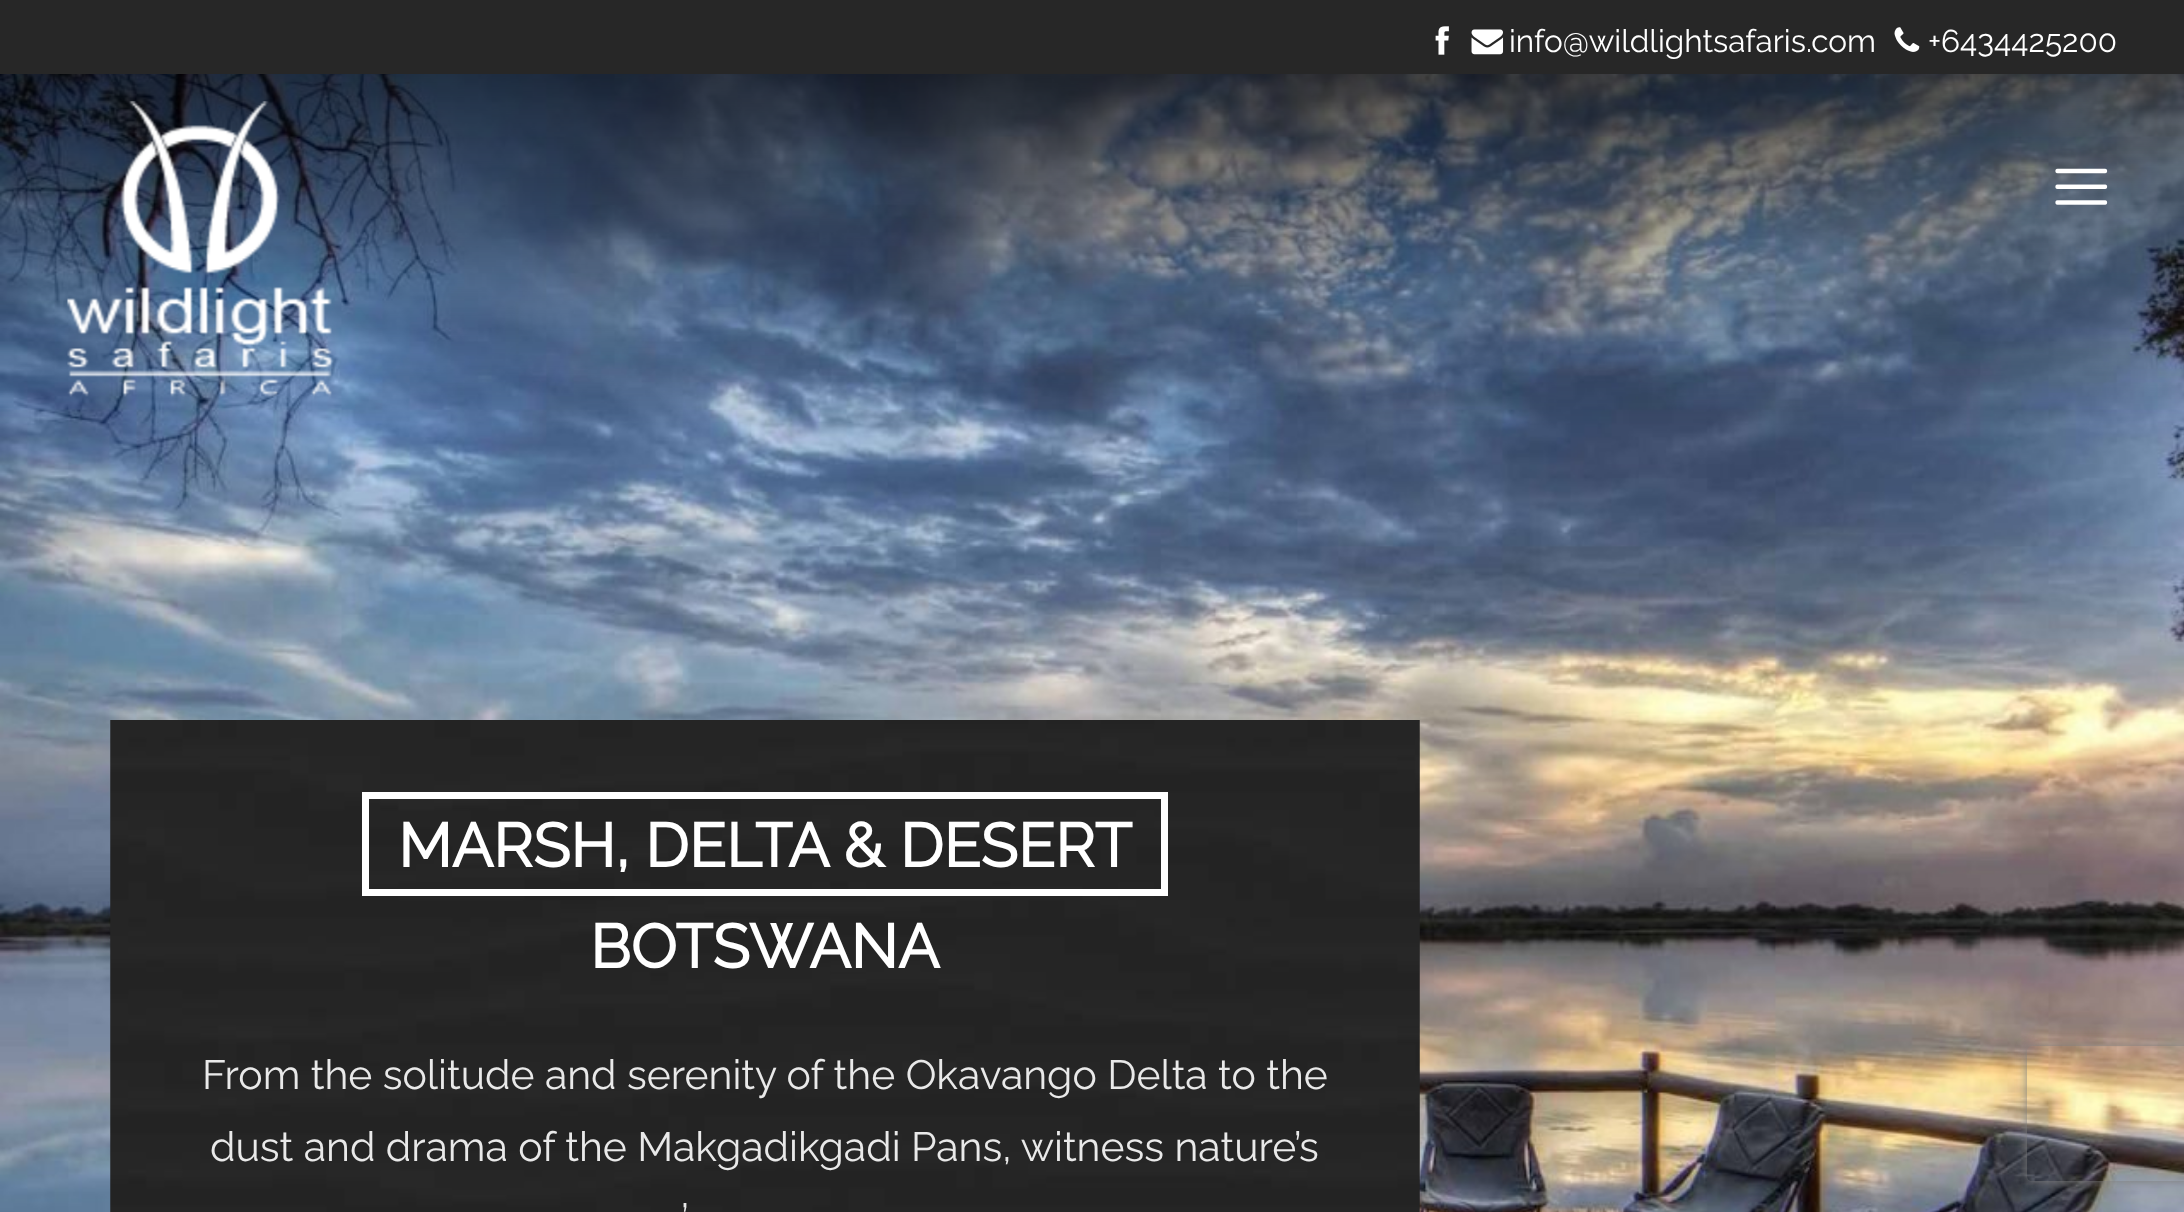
<svg xmlns="http://www.w3.org/2000/svg" width="2184" height="1212" viewBox="0 0 2184 1212">
  <defs>
    <clipPath id="clip1"><path d="M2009 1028H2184V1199H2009ZM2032 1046H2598C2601 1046 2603 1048 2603 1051V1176C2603 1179 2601 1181 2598 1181H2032C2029 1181 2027 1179 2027 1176V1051C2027 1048 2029 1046 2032 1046Z" clip-rule="evenodd"/></clipPath>
  </defs>
  <rect width="100%" height="100%" fill="rgb(255,255,255)"/>
  <rect x="0" y="0" width="2184" height="74" fill="rgb(39,39,39)"/>
  <image x="1435" y="26" width="14" height="29" href="pic1.png"/>
  <image x="1471" y="29" width="33" height="26" href="pic2.png"/>
  <text x="1509" y="52" font-family="Raleway" font-size="31.5" font-weight="100" fill="rgb(255,255,255)">info@wildlightsafaris.com</text>
  <image x="1894" y="27" width="26" height="25" href="pic3.png"/>
  <text x="1928" y="52" font-family="Raleway" font-size="31.5" font-weight="100" fill="rgb(255,255,255)">+6434425200</text>
  <image x="0" y="74" width="2184" height="1138" href="pic6.png"/>
  <image x="67" y="101" width="267" height="296" href="pic4.png"/>
  <image x="2055" y="168" width="53" height="37" href="pic5.png"/>
  <image x="110" y="720" width="1310" height="492" href="pic7.png"/>
  <rect x="365.5" y="795.5" width="799" height="97" fill="none" stroke="rgb(255,255,255)" stroke-width="7"/>
  <g font-family="Raleway" font-size="61.25" font-weight="bold" fill="rgb(255,255,255)">
    <text x="398" y="867">MARSH, DELTA &amp; DESERT</text>
    <text x="590" y="968">BOTSWANA</text>
  </g>
  <g font-family="Raleway" font-size="40.95" font-weight="100" fill="rgb(233,233,233)">
    <text x="202" y="1089">From the solitude and serenity of the Okavango Delta to the</text>
    <text x="210" y="1161">dust and drama of the Makgadikgadi Pans, witness nature’s</text>
    <text x="681" y="1233">’</text>
  </g>
  <g clip-path="url(#clip1)">
    <rect x="2027" y="1046" width="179" height="135" rx="5" fill="rgb(128,128,128)" filter="blur(5.5px)"/>
  </g>
</svg>
